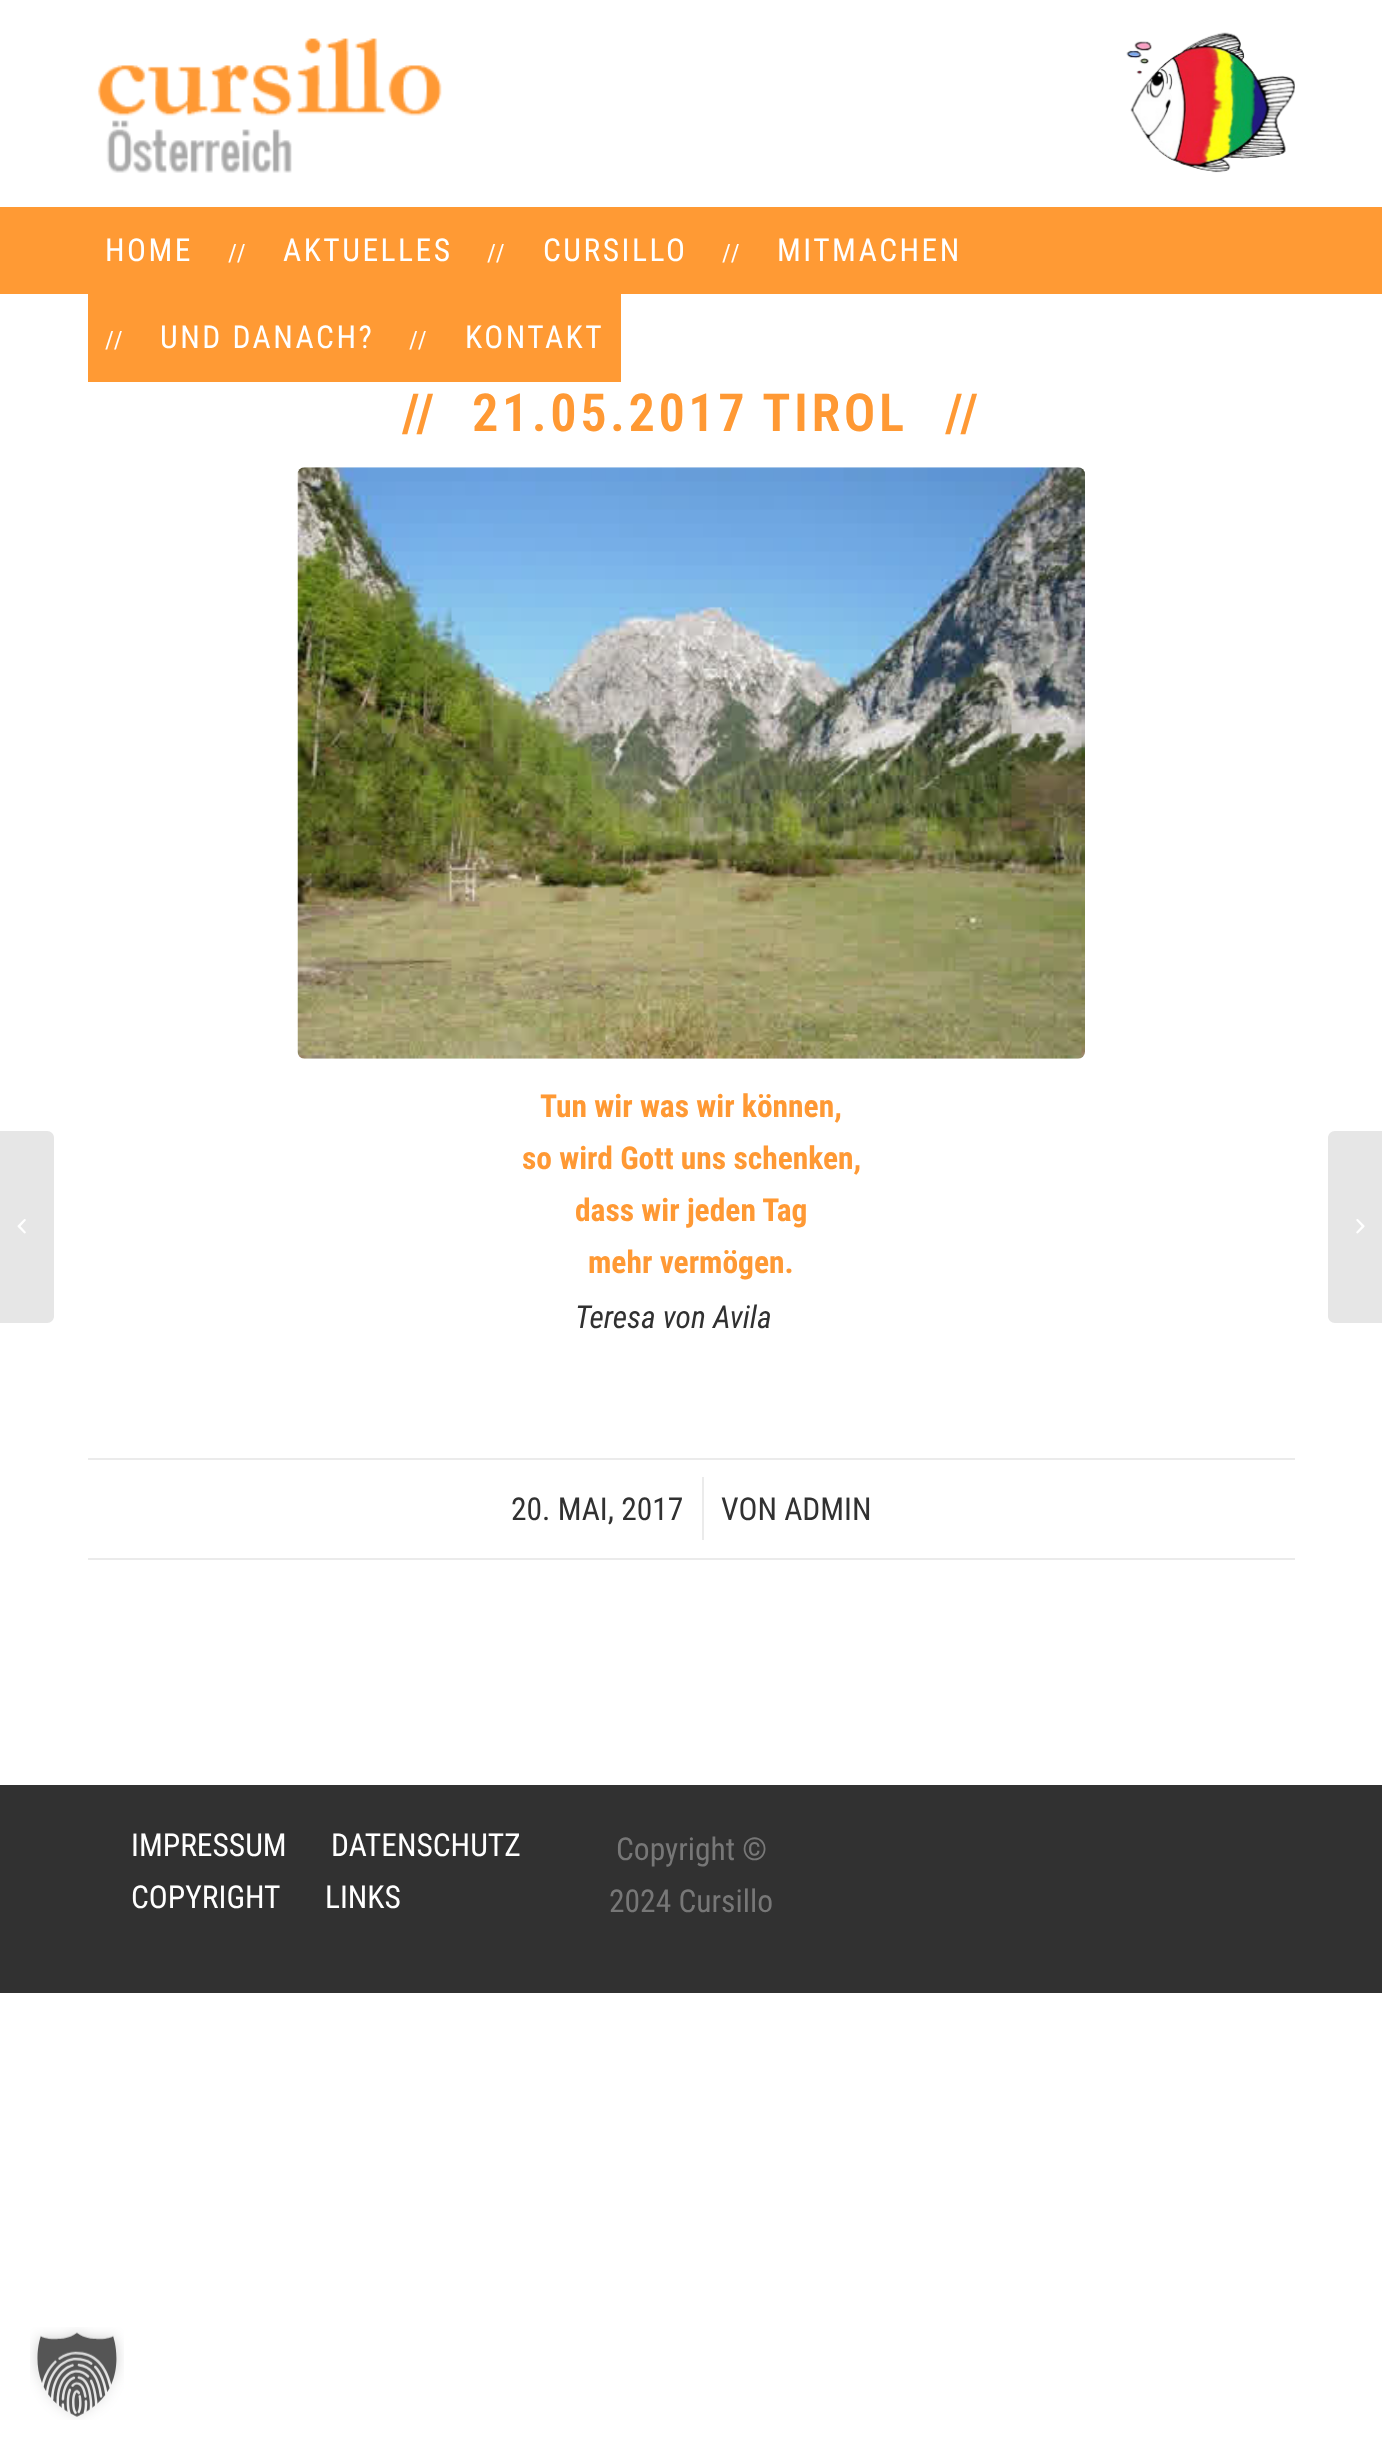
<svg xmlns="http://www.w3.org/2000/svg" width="1382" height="2451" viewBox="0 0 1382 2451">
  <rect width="100%" height="100%" fill="rgb(255,255,255)"/>
  <image x="97" y="38" width="345" height="135" href="pic1.png"/>
  <image x="1126" y="32" width="169" height="141" href="pic2.png"/>
  <rect x="0" y="207" width="1382" height="87" fill="rgb(255,154,52)"/>
  <text x="105" y="261" font-family="Roboto Condensed" font-size="31.5" letter-spacing="2.5" fill="rgb(255,255,255)">HOME</text>
  <text x="228" y="261" font-family="Roboto Condensed" font-size="24" letter-spacing="2.5" fill="rgb(255,255,255)">//</text>
  <text x="283" y="261" font-family="Roboto Condensed" font-size="31.5" letter-spacing="2.5" fill="rgb(255,255,255)">AKTUELLES</text>
  <text x="487" y="261" font-family="Roboto Condensed" font-size="24" letter-spacing="2.5" fill="rgb(255,255,255)">//</text>
  <text x="543" y="261" font-family="Roboto Condensed" font-size="31.5" letter-spacing="2.5" fill="rgb(255,255,255)">CURSILLO</text>
  <text x="722" y="261" font-family="Roboto Condensed" font-size="24" letter-spacing="2.5" fill="rgb(255,255,255)">//</text>
  <text x="777" y="261" font-family="Roboto Condensed" font-size="31.5" letter-spacing="2.5" fill="rgb(255,255,255)">MITMACHEN</text>
  <rect x="88" y="294" width="533" height="88" fill="rgb(255,154,52)"/>
  <text x="105" y="348" font-family="Roboto Condensed" font-size="24" letter-spacing="2.5" fill="rgb(255,255,255)">//</text>
  <text x="160" y="348" font-family="Roboto Condensed" font-size="31.5" letter-spacing="2.5" fill="rgb(255,255,255)">UND DANACH?</text>
  <text x="409" y="348" font-family="Roboto Condensed" font-size="24" letter-spacing="2.5" fill="rgb(255,255,255)">//</text>
  <text x="465" y="348" font-family="Roboto Condensed" font-size="31.5" letter-spacing="2.5" fill="rgb(255,255,255)">KONTAKT</text>
  <path d="M0 1131H47C51 1131 54 1134 54 1138V1316C54 1320 51 1323 47 1323H0Z" fill="rgb(230,230,230)"/>
  <image x="17" y="1219" width="9" height="15" href="pic3.png"/>
  <text x="402" y="431" font-family="Roboto Condensed" font-size="52.5" font-weight="bold" letter-spacing="3.5" fill="rgb(255,153,52)">//</text>
  <g font-family="Roboto Condensed" font-size="52.5" font-weight="600" letter-spacing="3.5" fill="rgb(255,153,52)">
    <text x="472" y="431">21.05.2017 TIROL</text>
    <text x="945" y="431">//</text>
  </g>
  <image x="297" y="467" width="788" height="592" href="pic4.png"/>
  <g font-family="Roboto Condensed" font-size="31.5" font-weight="bold" fill="rgb(255,153,52)">
    <text x="540" y="1117">Tun wir was wir können,</text>
    <text x="522" y="1169">so wird Gott uns schenken,</text>
    <text x="575" y="1221">dass wir jeden Tag</text>
    <text x="588" y="1273">mehr vermögen.</text>
  </g>
  <text x="575" y="1328" font-family="Roboto Condensed" font-size="31.5" font-style="italic" fill="rgb(49,49,49)">Teresa von Avila</text>
  <rect x="88" y="1458" width="1207" height="2" fill="rgb(235,235,235)"/>
  <rect x="88" y="1558" width="1207" height="2" fill="rgb(235,235,235)"/>
  <text x="511" y="1520" font-family="Roboto Condensed" font-size="31.5" fill="rgb(49,49,49)">20. MAI, 2017</text>
  <rect x="702" y="1477" width="2" height="63" fill="rgb(235,235,235)"/>
  <text x="721" y="1520" font-family="Roboto Condensed" font-size="31.5" fill="rgb(49,49,49)">VON ADMIN</text>
  <rect x="0" y="1785" width="1382" height="208" fill="rgb(49,49,49)"/>
  <g font-family="Roboto Condensed" font-size="31.5" fill="rgb(255,255,255)">
    <text x="131" y="1856">IMPRESSUM</text>
    <text x="331" y="1856">DATENSCHUTZ</text>
    <text x="131" y="1908">COPYRIGHT</text>
    <text x="325" y="1908">LINKS</text>
  </g>
  <g font-family="Roboto Condensed" font-size="31.5" fill="rgb(119,119,119)">
    <text x="616" y="1860">Copyright ©</text>
    <text x="609" y="1912">2024 Cursillo</text>
  </g>
  <path d="M1335 1131H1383V1323H1335C1331 1323 1328 1320 1328 1316V1138C1328 1134 1331 1131 1335 1131Z" fill="rgb(230,230,230)"/>
  <image x="1356" y="1219" width="9" height="15" href="pic5.png"/>
  <image x="30" y="2327" width="94" height="93" href="pic6.png"/>
</svg>
